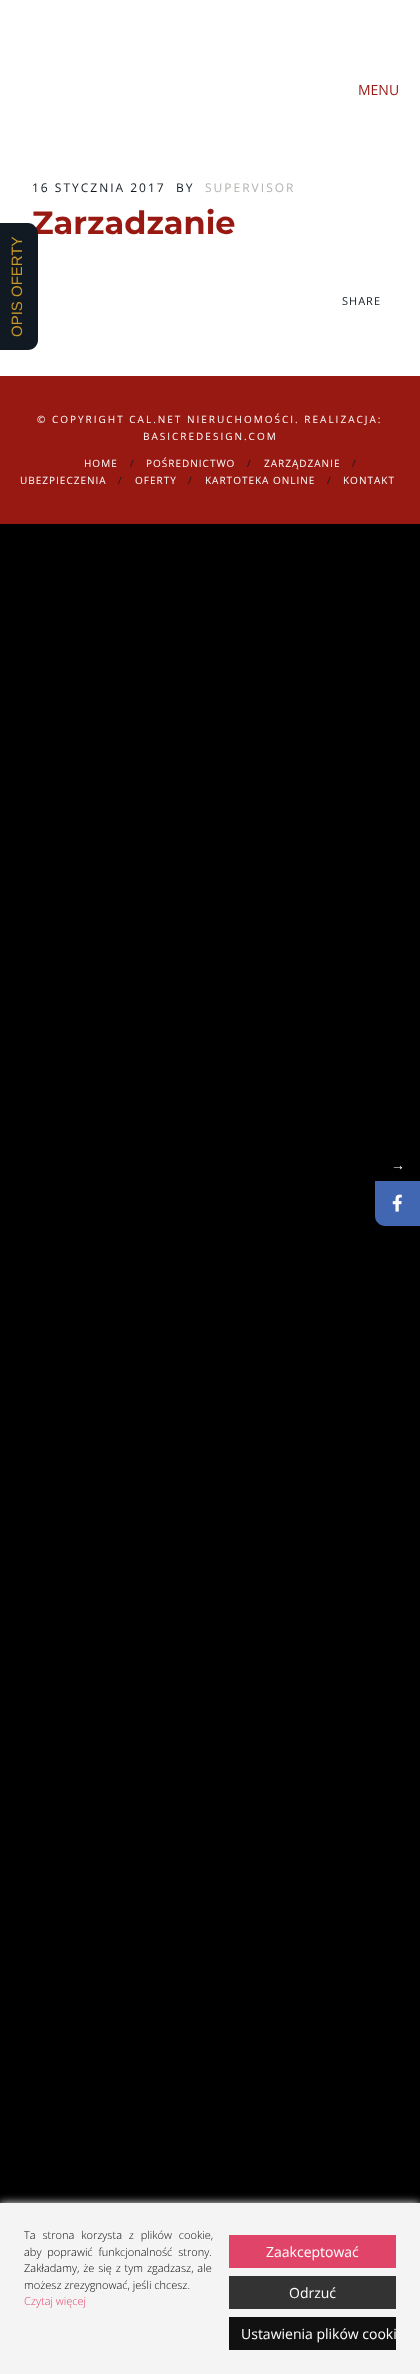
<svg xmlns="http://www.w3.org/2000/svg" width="420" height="2374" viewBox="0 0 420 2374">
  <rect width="100%" height="100%" fill="rgb(0,0,0)"/>
  <rect x="0" y="0" width="420" height="376" fill="rgb(255,255,255)"/>
  <text x="32" y="234" font-family="Montserrat" font-size="32" font-weight="bold" fill="rgb(152,25,18)">Zarzadzanie</text>
  <path d="M-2 350V223H28C33 223 38 228 38 233V340C38 346 33 350 28 350Z" fill="rgb(17,26,34)"/>
  <text x="22" y="337" transform="rotate(-90 22 337)" font-family="Liberation Sans" font-size="15" fill="rgb(202,151,43)">OPIS OFERTY</text>
  <text x="358" y="95" font-family="Open Sans" font-size="14" fill="rgb(152,25,18)">MENU</text>
  <g font-family="Open Sans" font-size="12" letter-spacing="2" fill="rgb(17,26,34)">
    <text x="32" y="192">16 STYCZNIA 2017</text>
    <text x="176" y="192">BY</text>
  </g>
  <text x="205" y="192" font-family="Open Sans" font-size="12" letter-spacing="2" fill="rgb(179,179,177)">SUPERVISOR</text>
  <text x="342" y="305" font-family="Open Sans" font-size="11" letter-spacing="1" fill="rgb(17,26,34)">SHARE</text>
  <rect x="0" y="376" width="420" height="148" fill="rgb(152,25,18)"/>
  <g font-family="Open Sans" font-size="10" letter-spacing="2" fill="rgb(255,255,255)">
    <text x="37" y="423">© COPYRIGHT CAL.NET NIERUCHOMOŚCI. REALIZACJA:</text>
    <text x="143" y="440">BASICREDESIGN.COM</text>
  </g>
  <text x="84" y="467" font-family="Open Sans" font-size="10" letter-spacing="1" fill="rgb(255,255,255)">HOME</text>
  <text x="130" y="467" font-family="Open Sans" font-size="10" letter-spacing="1" fill="rgb(17,26,34)">/</text>
  <text x="146" y="467" font-family="Open Sans" font-size="10" letter-spacing="1" fill="rgb(255,255,255)">POŚREDNICTWO</text>
  <text x="247" y="467" font-family="Open Sans" font-size="10" letter-spacing="1" fill="rgb(17,26,34)">/</text>
  <text x="264" y="467" font-family="Open Sans" font-size="10" letter-spacing="1" fill="rgb(255,255,255)">ZARZĄDZANIE</text>
  <text x="352" y="467" font-family="Open Sans" font-size="10" letter-spacing="1" fill="rgb(17,26,34)">/</text>
  <text x="20" y="484" font-family="Open Sans" font-size="10" letter-spacing="1" fill="rgb(255,255,255)">UBEZPIECZENIA</text>
  <text x="118" y="484" font-family="Open Sans" font-size="10" letter-spacing="1" fill="rgb(17,26,34)">/</text>
  <text x="135" y="484" font-family="Open Sans" font-size="10" letter-spacing="1" fill="rgb(255,255,255)">OFERTY</text>
  <text x="188" y="484" font-family="Open Sans" font-size="10" letter-spacing="1" fill="rgb(17,26,34)">/</text>
  <text x="205" y="484" font-family="Open Sans" font-size="10" letter-spacing="1" fill="rgb(255,255,255)">KARTOTEKA ONLINE</text>
  <text x="327" y="484" font-family="Open Sans" font-size="10" letter-spacing="1" fill="rgb(17,26,34)">/</text>
  <text x="343" y="484" font-family="Open Sans" font-size="10" letter-spacing="1" fill="rgb(255,255,255)">KONTAKT</text>
  <text x="391" y="1170" font-family="Liberation Serif" font-size="14" fill="rgb(255,255,255)">→</text>
  <path d="M375 1181H420V1226H385C379.5 1226 375 1221.5 375 1216Z" fill="rgb(66,103,178)"/>
  <image x="392" y="1194" width="10" height="18" href="pic1.png"/>
  <rect x="0" y="2203" width="420" height="171" fill="rgb(244,244,244)" filter="blur(4px)"/>
  <rect x="0" y="2203" width="420" height="171" fill="rgb(244,244,244)"/>
  <g font-family="Open Sans" font-size="11" font-weight="300" fill="rgb(0,0,0)">
    <text>
      <tspan x="24" y="2239" word-spacing="4">Ta strona korzysta z plików cookie,</tspan>
      <tspan x="24" y="2256" word-spacing="3">aby poprawić funkcjonalność strony.</tspan>
      <tspan x="24" y="2272" word-spacing="1">Zakładamy, że się z tym zgadzasz, ale</tspan>
      <tspan x="24" y="2289">możesz zrezygnować, jeśli chcesz.</tspan>
    </text>
  </g>
  <text x="24" y="2305" font-family="Open Sans" font-size="11" font-weight="300" fill="rgb(225,68,105)">Czytaj więcej</text>
  <rect x="229" y="2235" width="167" height="33" fill="rgb(225,68,105)"/>
  <text x="266" y="2257" font-family="Open Sans" font-size="14" fill="rgb(255,255,255)">Zaakceptować</text>
  <rect x="229" y="2276" width="167" height="33" fill="rgb(51,51,51)"/>
  <text x="289" y="2298" font-family="Open Sans" font-size="14" fill="rgb(255,255,255)">Odrzuć</text>
  <rect x="229" y="2317" width="167" height="33" fill="rgb(17,17,17)"/>
  <text x="241" y="2339" font-family="Open Sans" font-size="14" fill="rgb(255,255,255)">Ustawienia plików cooki</text>
</svg>
